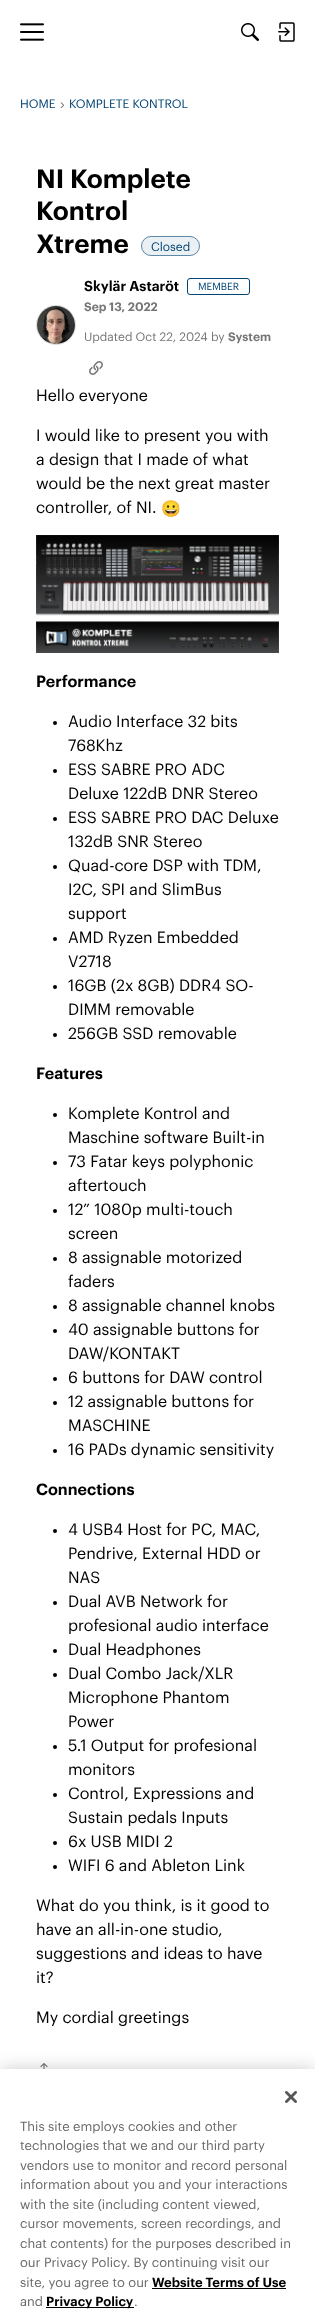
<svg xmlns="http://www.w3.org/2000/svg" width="315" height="2322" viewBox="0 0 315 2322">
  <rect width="100%" height="100%" fill="rgb(255,255,255)"/>
  <image x="20" y="23" width="24" height="18" href="pic1.png"/>
  <image x="241" y="23" width="18" height="18" href="pic2.png"/>
  <image x="278" y="22" width="17" height="20" href="pic3.png"/>
  <text x="20" y="108" font-family="Graphik" font-size="12" fill="rgb(2,68,117)">HOME</text>
  <text x="60" y="109" font-family="Liberation Sans" font-size="14" fill="rgb(128,128,128)">›</text>
  <text x="69" y="108" font-family="Graphik" font-size="12" fill="rgb(2,68,117)">KOMPLETE KONTROL</text>
  <g font-family="Graphik" font-size="26" font-weight="600" fill="rgb(0,0,0)">
    <text>
      <tspan x="36" y="188">NI Komplete</tspan>
      <tspan x="36" y="220">Kontrol</tspan>
      <tspan x="36" y="253">Xtreme</tspan>
    </text>
  </g>
  <rect x="141" y="236" width="59" height="20" rx="10" fill="rgb(235,240,244)"/>
  <rect x="141.5" y="236.5" width="58" height="19" rx="9.5" fill="none" stroke="rgba(2,68,117,0.6)"/>
  <text x="151" y="251" font-family="Graphik" font-size="12" fill="rgb(2,68,117)">Closed</text>
  <circle cx="56" cy="325" r="19.5" fill="none" stroke="rgb(217,217,217)"/>
  <image x="37" y="306" width="38" height="38" href="pic4.png"/>
  <text x="84" y="291" font-family="Graphik" font-size="14" font-weight="600" fill="rgb(0,0,0)">Skylär Astaröt</text>
  <rect x="187.5" y="278.5" width="62" height="16" rx="2.5" fill="none" stroke="rgb(2,68,117)"/>
  <text x="198" y="290" font-family="Graphik" font-size="10" fill="rgb(2,68,117)">MEMBER</text>
  <text x="84" y="311" font-family="Graphik" font-size="12" font-weight="600" fill="rgb(118,118,118)">Sep 13, 2022</text>
  <text x="84" y="341" font-family="Graphik" font-size="12" fill="rgb(118,118,118)">Updated Oct 22, 2024 by</text>
  <text x="228" y="341" font-family="Graphik" font-size="12" font-weight="600" fill="rgb(118,118,118)">System</text>
  <image x="89" y="361" width="14" height="14" href="pic5.png"/>
  <g font-family="Graphik" font-size="16" fill="rgb(0,0,0)">
    <text x="36" y="401">Hello everyone</text>
    <text>
      <tspan x="36" y="441">I would like to present you with</tspan>
      <tspan x="36" y="465">a design that I made of what</tspan>
      <tspan x="36" y="489">would be the next great master</tspan>
      <tspan x="36" y="513">controller, of NI.</tspan>
    </text>
  </g>
  <text x="161" y="514" font-family="Noto Color Emoji" font-size="16" fill="rgb(0,0,0)">😀</text>
  <image x="36" y="535" width="243" height="118" href="pic6.png"/>
  <text x="36" y="687" font-family="Graphik" font-size="16" font-weight="600" fill="rgb(0,0,0)">Performance</text>
  <circle cx="55" cy="723" r="2" fill="rgb(0,0,0)"/>
  <g font-family="Graphik" font-size="16" fill="rgb(0,0,0)">
    <text>
      <tspan x="68" y="727">Audio Interface 32 bits</tspan>
      <tspan x="68" y="751">768Khz</tspan>
    </text>
  </g>
  <circle cx="55" cy="771" r="2" fill="rgb(0,0,0)"/>
  <g font-family="Graphik" font-size="16" fill="rgb(0,0,0)">
    <text>
      <tspan x="68" y="775">ESS SABRE PRO ADC</tspan>
      <tspan x="68" y="799">Deluxe 122dB DNR Stereo</tspan>
    </text>
  </g>
  <circle cx="55" cy="819" r="2" fill="rgb(0,0,0)"/>
  <g font-family="Graphik" font-size="16" fill="rgb(0,0,0)">
    <text>
      <tspan x="68" y="823">ESS SABRE PRO DAC Deluxe</tspan>
      <tspan x="68" y="847">132dB SNR Stereo</tspan>
    </text>
  </g>
  <circle cx="55" cy="867" r="2" fill="rgb(0,0,0)"/>
  <g font-family="Graphik" font-size="16" fill="rgb(0,0,0)">
    <text>
      <tspan x="68" y="871">Quad-core DSP with TDM,</tspan>
      <tspan x="68" y="895">I2C, SPI and SlimBus</tspan>
      <tspan x="68" y="919">support</tspan>
    </text>
  </g>
  <circle cx="55" cy="939" r="2" fill="rgb(0,0,0)"/>
  <g font-family="Graphik" font-size="16" fill="rgb(0,0,0)">
    <text>
      <tspan x="68" y="943">AMD Ryzen Embedded</tspan>
      <tspan x="68" y="967">V2718</tspan>
    </text>
  </g>
  <circle cx="55" cy="987" r="2" fill="rgb(0,0,0)"/>
  <g font-family="Graphik" font-size="16" fill="rgb(0,0,0)">
    <text>
      <tspan x="68" y="991">16GB (2x 8GB) DDR4 SO-</tspan>
      <tspan x="68" y="1015">DIMM removable</tspan>
    </text>
  </g>
  <circle cx="55" cy="1035" r="2" fill="rgb(0,0,0)"/>
  <text x="68" y="1039" font-family="Graphik" font-size="16" fill="rgb(0,0,0)">256GB SSD removable</text>
  <text x="36" y="1079" font-family="Graphik" font-size="16" font-weight="600" fill="rgb(0,0,0)">Features</text>
  <circle cx="55" cy="1115" r="2" fill="rgb(0,0,0)"/>
  <g font-family="Graphik" font-size="16" fill="rgb(0,0,0)">
    <text>
      <tspan x="68" y="1119">Komplete Kontrol and</tspan>
      <tspan x="68" y="1143">Maschine software Built-in</tspan>
    </text>
  </g>
  <circle cx="55" cy="1163" r="2" fill="rgb(0,0,0)"/>
  <g font-family="Graphik" font-size="16" fill="rgb(0,0,0)">
    <text>
      <tspan x="68" y="1167">73 Fatar keys polyphonic</tspan>
      <tspan x="68" y="1191">aftertouch</tspan>
    </text>
  </g>
  <circle cx="55" cy="1211" r="2" fill="rgb(0,0,0)"/>
  <g font-family="Graphik" font-size="16" fill="rgb(0,0,0)">
    <text>
      <tspan x="68" y="1215">12” 1080p multi-touch</tspan>
      <tspan x="68" y="1239">screen</tspan>
    </text>
  </g>
  <circle cx="55" cy="1259" r="2" fill="rgb(0,0,0)"/>
  <g font-family="Graphik" font-size="16" fill="rgb(0,0,0)">
    <text>
      <tspan x="68" y="1263">8 assignable motorized</tspan>
      <tspan x="68" y="1287">faders</tspan>
    </text>
  </g>
  <circle cx="55" cy="1307" r="2" fill="rgb(0,0,0)"/>
  <text x="68" y="1311" font-family="Graphik" font-size="16" fill="rgb(0,0,0)">8 assignable channel knobs</text>
  <circle cx="55" cy="1331" r="2" fill="rgb(0,0,0)"/>
  <g font-family="Graphik" font-size="16" fill="rgb(0,0,0)">
    <text>
      <tspan x="68" y="1335">40 assignable buttons for</tspan>
      <tspan x="68" y="1359">DAW/KONTAKT</tspan>
    </text>
  </g>
  <circle cx="55" cy="1379" r="2" fill="rgb(0,0,0)"/>
  <text x="68" y="1383" font-family="Graphik" font-size="16" fill="rgb(0,0,0)">6 buttons for DAW control</text>
  <circle cx="55" cy="1403" r="2" fill="rgb(0,0,0)"/>
  <g font-family="Graphik" font-size="16" fill="rgb(0,0,0)">
    <text>
      <tspan x="68" y="1407">12 assignable buttons for</tspan>
      <tspan x="68" y="1431">MASCHINE</tspan>
    </text>
  </g>
  <circle cx="55" cy="1451" r="2" fill="rgb(0,0,0)"/>
  <text x="68" y="1455" font-family="Graphik" font-size="16" fill="rgb(0,0,0)">16 PADs dynamic sensitivity</text>
  <text x="36" y="1495" font-family="Graphik" font-size="16" font-weight="600" fill="rgb(0,0,0)">Connections</text>
  <circle cx="55" cy="1531" r="2" fill="rgb(0,0,0)"/>
  <g font-family="Graphik" font-size="16" fill="rgb(0,0,0)">
    <text>
      <tspan x="68" y="1535">4 USB4 Host for PC, MAC,</tspan>
      <tspan x="68" y="1559">Pendrive, External HDD or</tspan>
      <tspan x="68" y="1583">NAS</tspan>
    </text>
  </g>
  <circle cx="55" cy="1603" r="2" fill="rgb(0,0,0)"/>
  <g font-family="Graphik" font-size="16" fill="rgb(0,0,0)">
    <text>
      <tspan x="68" y="1607">Dual AVB Network for</tspan>
      <tspan x="68" y="1631">profesional audio interface</tspan>
    </text>
  </g>
  <circle cx="55" cy="1651" r="2" fill="rgb(0,0,0)"/>
  <text x="68" y="1655" font-family="Graphik" font-size="16" fill="rgb(0,0,0)">Dual Headphones</text>
  <circle cx="55" cy="1675" r="2" fill="rgb(0,0,0)"/>
  <g font-family="Graphik" font-size="16" fill="rgb(0,0,0)">
    <text>
      <tspan x="68" y="1679">Dual Combo Jack/XLR</tspan>
      <tspan x="68" y="1703">Microphone Phantom</tspan>
      <tspan x="68" y="1727">Power</tspan>
    </text>
  </g>
  <circle cx="55" cy="1747" r="2" fill="rgb(0,0,0)"/>
  <g font-family="Graphik" font-size="16" fill="rgb(0,0,0)">
    <text>
      <tspan x="68" y="1751">5.1 Output for profesional</tspan>
      <tspan x="68" y="1775">monitors</tspan>
    </text>
  </g>
  <circle cx="55" cy="1795" r="2" fill="rgb(0,0,0)"/>
  <g font-family="Graphik" font-size="16" fill="rgb(0,0,0)">
    <text>
      <tspan x="68" y="1799">Control, Expressions and</tspan>
      <tspan x="68" y="1823">Sustain pedals Inputs</tspan>
    </text>
  </g>
  <circle cx="55" cy="1843" r="2" fill="rgb(0,0,0)"/>
  <text x="68" y="1847" font-family="Graphik" font-size="16" fill="rgb(0,0,0)">6x USB MIDI 2</text>
  <circle cx="55" cy="1867" r="2" fill="rgb(0,0,0)"/>
  <g font-family="Graphik" font-size="16" fill="rgb(0,0,0)">
    <text x="68" y="1871">WIFI 6 and Ableton Link</text>
    <text>
      <tspan x="36" y="1911">What do you think, is it good to</tspan>
      <tspan x="36" y="1935">have an all-in-one studio,</tspan>
      <tspan x="36" y="1959">suggestions and ideas to have</tspan>
      <tspan x="36" y="1983">it?</tspan>
    </text>
    <text x="36" y="2023">My cordial greetings</text>
  </g>
  <image x="40" y="2063" width="8" height="6" href="pic7.png"/>
  <rect x="0" y="2069" width="315" height="253" fill="rgba(0,0,0,0.2)" filter="blur(9px)"/>
  <rect x="0" y="2069" width="315" height="253" fill="rgb(255,255,255)"/>
  <image x="285" y="2091" width="12" height="12" href="pic8.png"/>
  <g font-family="Graphik" font-size="13" fill="rgb(105,105,105)">
    <text>
      <tspan x="20" y="2131">This site employs cookies and other</tspan>
      <tspan x="20" y="2150">technologies that we and our third party</tspan>
      <tspan x="20" y="2170">vendors use to monitor and record personal</tspan>
      <tspan x="20" y="2189">information about you and your interactions</tspan>
      <tspan x="20" y="2209">with the site (including content viewed,</tspan>
      <tspan x="20" y="2228">cursor movements, screen recordings, and</tspan>
      <tspan x="20" y="2248">chat contents) for the purposes described in</tspan>
      <tspan x="20" y="2267">our Privacy Policy. By continuing visit our</tspan>
      <tspan x="20" y="2287">site, you agree to our</tspan>
    </text>
  </g>
  <text x="152" y="2287" font-family="Graphik" font-size="13" font-weight="600" fill="rgb(0,0,0)">Website Terms of Use</text>
  <rect x="152" y="2288" width="134" height="1" fill="rgb(0,0,0)"/>
  <text x="20" y="2306" font-family="Graphik" font-size="13" fill="rgb(105,105,105)">and</text>
  <rect x="46" y="2307" width="88" height="1" fill="rgb(0,0,0)"/>
  <text x="46" y="2306" font-family="Graphik" font-size="13" font-weight="600" fill="rgb(0,0,0)">Privacy Policy</text>
  <text x="134" y="2306" font-family="Graphik" font-size="13" fill="rgb(105,105,105)">.</text>
</svg>
